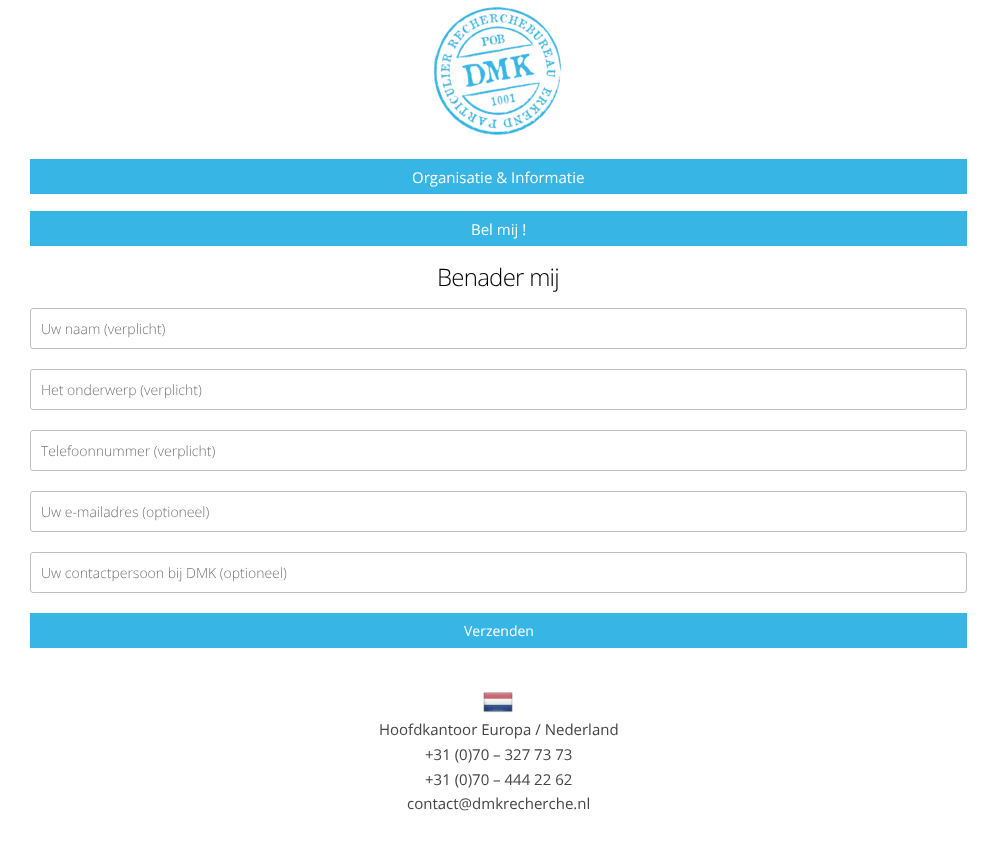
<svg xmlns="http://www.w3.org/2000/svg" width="997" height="864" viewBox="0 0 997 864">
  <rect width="100%" height="100%" fill="rgb(255,255,255)"/>
  <image x="433" y="6" width="129" height="130" href="pic1.png"/>
  <rect x="30" y="159" width="937" height="35" fill="rgb(55,182,230)"/>
  <text x="412" y="183" font-family="Open Sans" font-size="15" fill="rgb(255,255,255)">Organisatie &amp; Informatie</text>
  <rect x="30" y="211" width="937" height="35" fill="rgb(55,182,230)"/>
  <text x="471" y="235" font-family="Open Sans" font-size="15" fill="rgb(255,255,255)">Bel mij !</text>
  <text x="437" y="286" font-family="Open Sans" font-size="24" font-weight="300" letter-spacing="-0.75" fill="rgb(0,0,0)">Benader mij</text>
  <rect x="30.5" y="308.5" width="936" height="40" rx="2.5" fill="none" stroke="rgb(191,191,191)"/>
  <text x="41" y="334" font-family="Open Sans" font-size="14" font-weight="300" fill="rgb(117,117,117)">Uw naam (verplicht)</text>
  <rect x="30.5" y="369.5" width="936" height="40" rx="2.5" fill="none" stroke="rgb(191,191,191)"/>
  <text x="41" y="395" font-family="Open Sans" font-size="14" font-weight="300" fill="rgb(117,117,117)">Het onderwerp (verplicht)</text>
  <rect x="30.5" y="430.5" width="936" height="40" rx="2.5" fill="none" stroke="rgb(191,191,191)"/>
  <text x="41" y="456" font-family="Open Sans" font-size="14" font-weight="300" fill="rgb(117,117,117)">Telefoonnummer (verplicht)</text>
  <rect x="30.5" y="491.5" width="936" height="40" rx="2.5" fill="none" stroke="rgb(191,191,191)"/>
  <text x="41" y="517" font-family="Open Sans" font-size="14" font-weight="300" fill="rgb(117,117,117)">Uw e-mailadres (optioneel)</text>
  <rect x="30.5" y="552.5" width="936" height="40" rx="2.5" fill="none" stroke="rgb(191,191,191)"/>
  <text x="41" y="578" font-family="Open Sans" font-size="14" font-weight="300" fill="rgb(117,117,117)">Uw contactpersoon bij DMK (optioneel)</text>
  <rect x="30" y="613" width="937" height="35" fill="rgb(55,182,230)"/>
  <text x="464" y="636" font-family="Open Sans" font-size="14" fill="rgb(255,255,255)">Verzenden</text>
  <image x="483" y="692" width="30" height="21" href="pic2.png"/>
  <g font-family="Open Sans" font-size="15" fill="rgb(68,68,68)">
    <text x="379" y="735">Hoofdkantoor Europa / Nederland</text>
    <text>
      <tspan x="425" y="760">+31 (0)70 – 327 73 73</tspan>
      <tspan x="425" y="785">+31 (0)70 – 444 22 62</tspan>
    </text>
    <text x="407" y="809">contact@dmkrecherche.nl</text>
  </g>
</svg>
